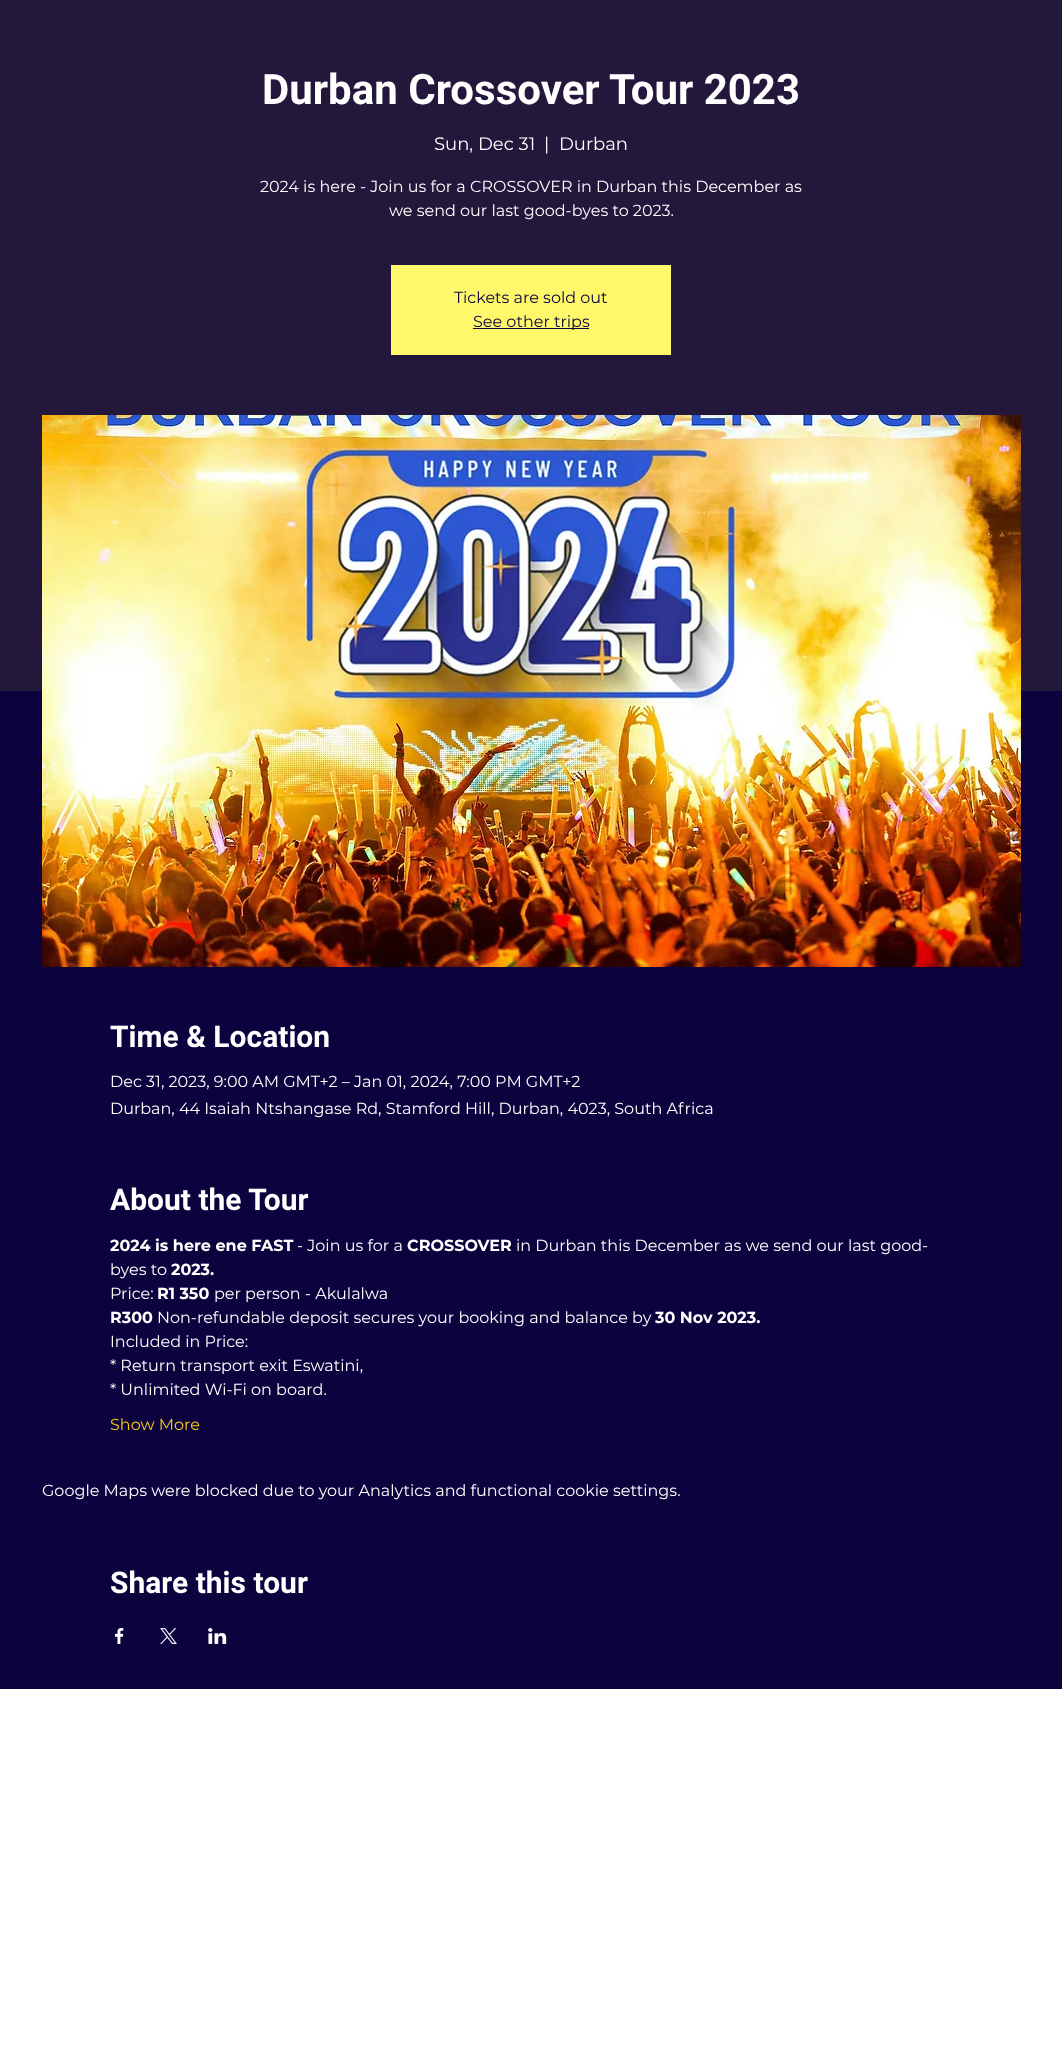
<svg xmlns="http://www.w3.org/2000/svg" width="1062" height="2072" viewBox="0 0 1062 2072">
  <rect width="100%" height="100%" fill="rgb(255,255,255)"/>
  <rect x="0" y="0" width="1062" height="691" fill="rgb(35,23,59)"/>
  <text x="262" y="104" font-family="Roboto" font-size="42" font-weight="bold" fill="rgb(255,255,255)">Durban Crossover Tour 2023</text>
  <g font-family="Montserrat" font-size="18" fill="rgb(255,255,255)">
    <text x="434" y="150">Sun, Dec 31</text>
    <text x="544" y="150">|</text>
    <text x="559" y="150">Durban</text>
  </g>
  <g font-family="Montserrat" font-size="16" fill="rgb(255,255,255)">
    <text x="260" y="192">2024 is here - Join us for a CROSSOVER in Durban this December as</text>
    <text x="389" y="216">we send our last good-byes to 2023.</text>
  </g>
  <rect x="391" y="265" width="280" height="90" fill="rgb(255,248,107)"/>
  <text x="454" y="303" font-family="Montserrat" font-size="16" fill="rgb(12,3,62)">Tickets are sold out</text>
  <rect x="473" y="328" width="116" height="1" fill="rgb(12,3,62)"/>
  <text x="473" y="327" font-family="Montserrat" font-size="16" fill="rgb(12,3,62)">See other trips</text>
  <rect x="0" y="691" width="1062" height="998" fill="rgb(12,3,62)"/>
  <image x="42" y="415" width="979" height="552" href="pic1.png"/>
  <text x="110" y="1047" font-family="Roboto" font-size="30" font-weight="bold" fill="rgb(255,255,255)">Time &amp; Location</text>
  <g font-family="Montserrat" font-size="16" fill="rgb(255,255,255)">
    <text>
      <tspan x="110" y="1087">Dec 31, 2023, 9:00 AM GMT+2 – Jan 01, 2024, 7:00 PM GMT+2</tspan>
      <tspan x="110" y="1114">Durban, 44 Isaiah Ntshangase Rd, Stamford Hill, Durban, 4023, South Africa</tspan>
    </text>
  </g>
  <text x="110" y="1210" font-family="Roboto" font-size="30" font-weight="bold" fill="rgb(255,255,255)">About the Tour</text>
  <text x="110" y="1251" font-family="Montserrat" font-size="16" font-weight="bold" fill="rgb(255,255,255)">2024 is here ene FAST</text>
  <text x="297" y="1251" font-family="Montserrat" font-size="16" fill="rgb(255,255,255)">- Join us for a</text>
  <text x="407" y="1251" font-family="Montserrat" font-size="16" font-weight="bold" fill="rgb(255,255,255)">CROSSOVER</text>
  <g font-family="Montserrat" font-size="16" fill="rgb(255,255,255)">
    <text x="516" y="1251">in Durban this December as we send our last good-</text>
    <text x="110" y="1275">byes to</text>
  </g>
  <text x="171" y="1275" font-family="Montserrat" font-size="16" font-weight="bold" fill="rgb(255,255,255)">2023.</text>
  <text x="110" y="1299" font-family="Montserrat" font-size="16" fill="rgb(255,255,255)">Price:</text>
  <text x="157" y="1299" font-family="Montserrat" font-size="16" font-weight="bold" fill="rgb(255,255,255)">R1 350</text>
  <text x="214" y="1299" font-family="Montserrat" font-size="16" fill="rgb(255,255,255)">per person - Akulalwa</text>
  <text x="110" y="1323" font-family="Montserrat" font-size="16" font-weight="bold" fill="rgb(255,255,255)">R300</text>
  <text x="157" y="1323" font-family="Montserrat" font-size="16" fill="rgb(255,255,255)">Non-refundable deposit secures your booking and balance by</text>
  <text x="655" y="1323" font-family="Montserrat" font-size="16" font-weight="bold" fill="rgb(255,255,255)">30 Nov 2023.</text>
  <g font-family="Montserrat" font-size="16" fill="rgb(255,255,255)">
    <text>
      <tspan x="110" y="1347">Included in Price:</tspan>
      <tspan x="110" y="1371">* Return transport exit Eswatini,</tspan>
      <tspan x="110" y="1395">* Unlimited Wi-Fi on board.</tspan>
    </text>
  </g>
  <text x="110" y="1430" font-family="Montserrat" font-size="16" fill="rgb(245,201,28)">Show More</text>
  <text x="42" y="1496" font-family="Montserrat" font-size="16" fill="rgb(255,255,255)">Google Maps were blocked due to your Analytics and functional cookie settings.</text>
  <text x="110" y="1593" font-family="Roboto" font-size="30" font-weight="bold" fill="rgb(255,255,255)">Share this tour</text>
  <image x="115" y="1628" width="9" height="16" href="pic2.png"/>
  <image x="160" y="1628" width="17" height="16" href="pic3.png"/>
  <image x="208" y="1628" width="19" height="16" href="pic4.png"/>
</svg>
